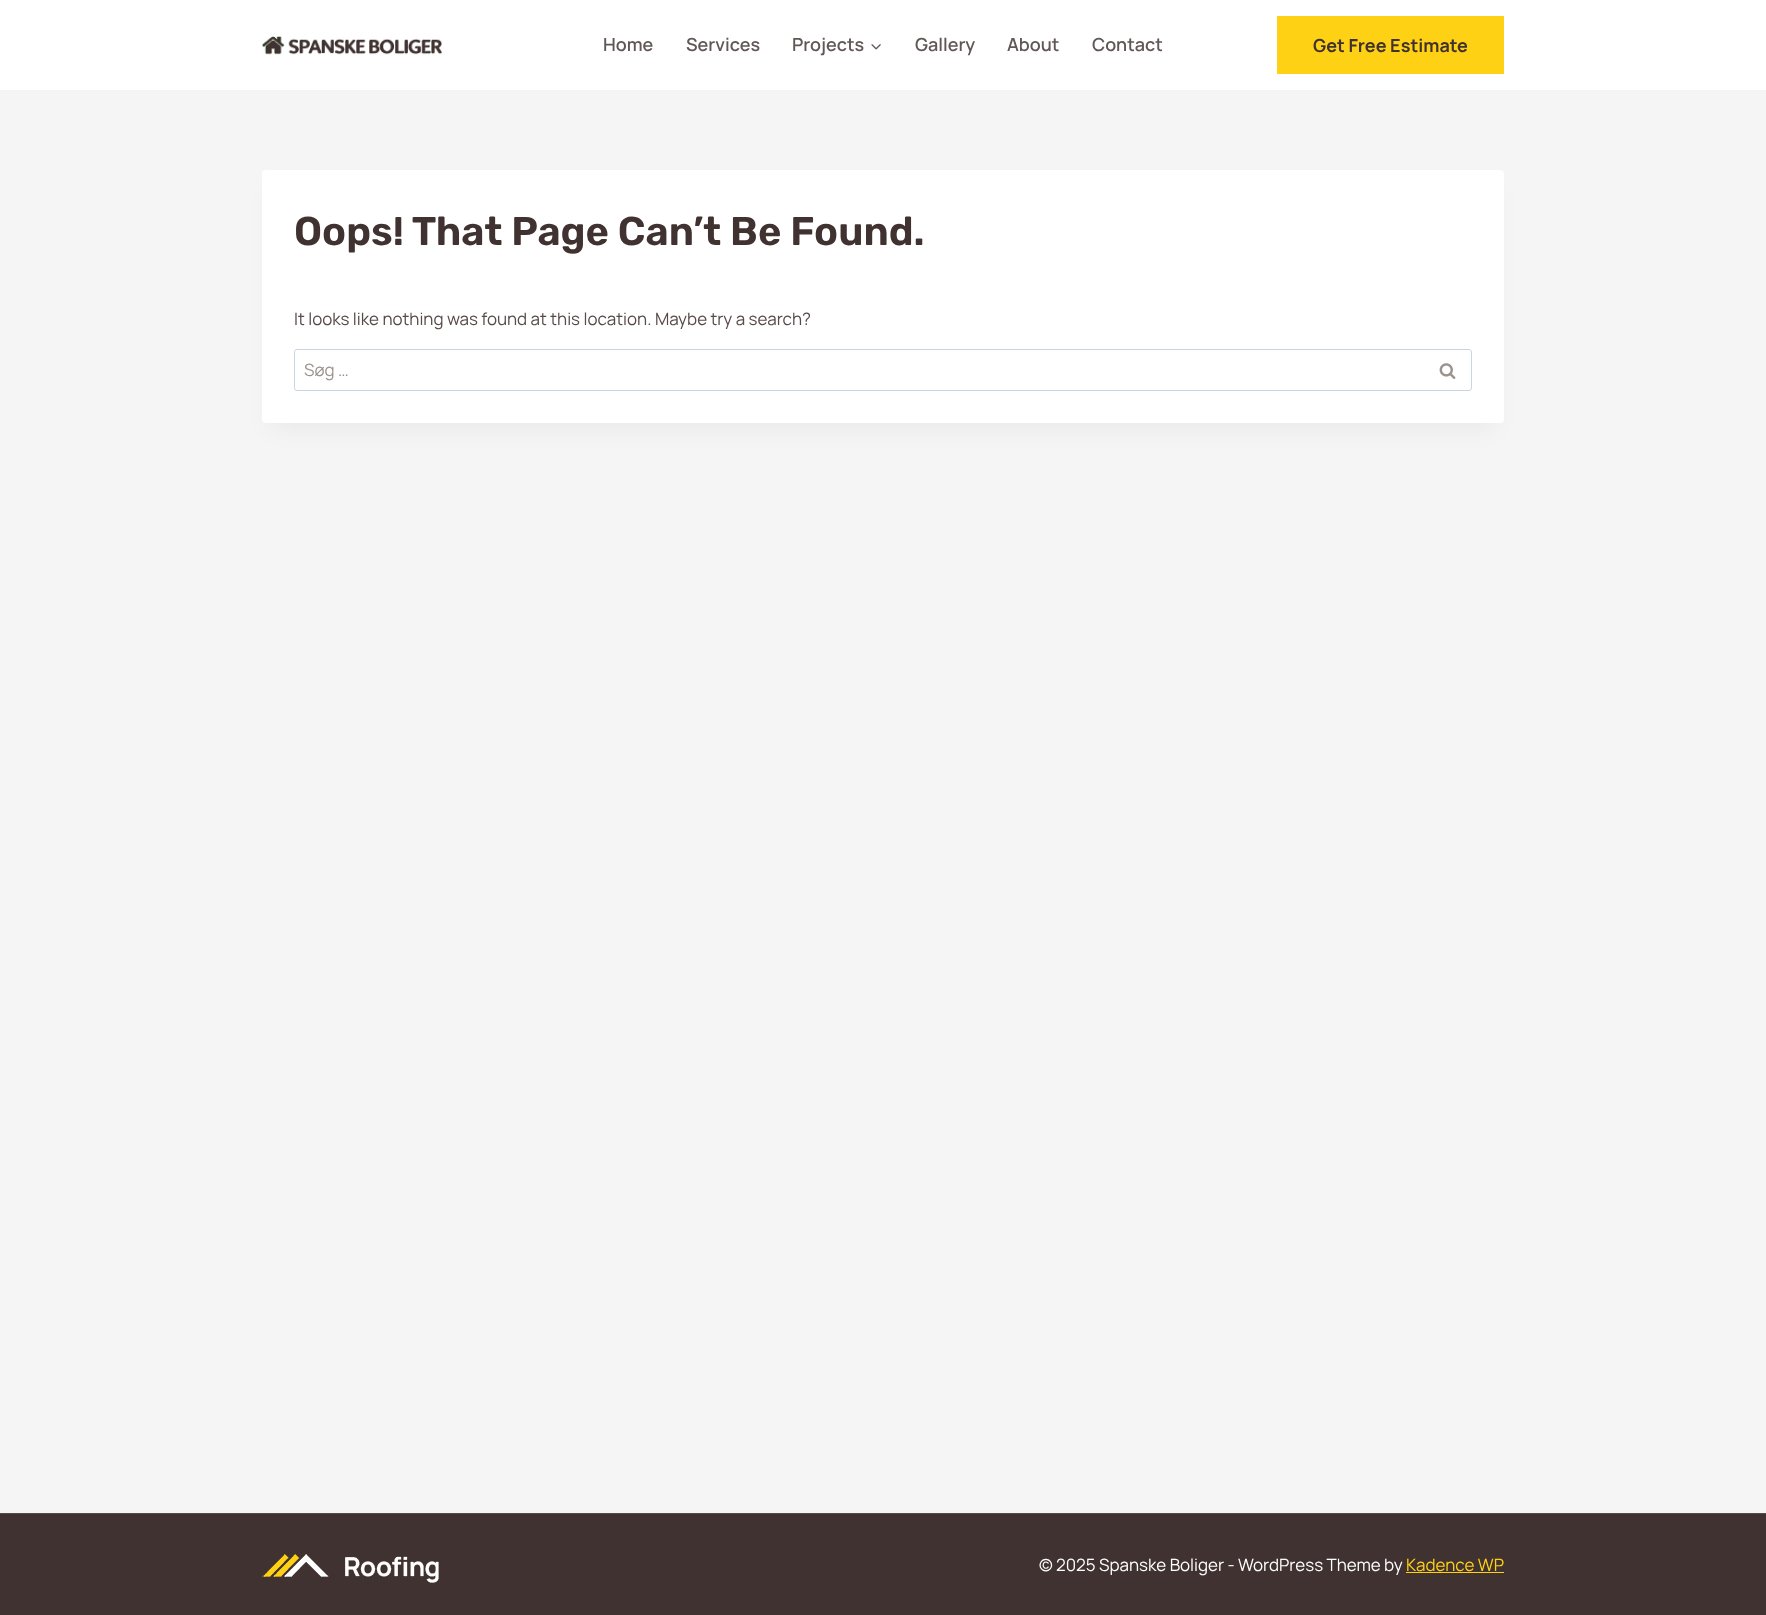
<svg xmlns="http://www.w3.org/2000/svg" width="1766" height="1615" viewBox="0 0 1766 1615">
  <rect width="100%" height="100%" fill="rgb(246,245,245)"/>
  <rect x="0" y="0" width="1766" height="90" fill="rgb(255,255,255)"/>
  <image x="262" y="36" width="180" height="19" href="pic1.png"/>
  <g font-family="Manrope" font-size="18" font-weight="600" fill="rgb(97,87,86)">
    <text x="603" y="51">Home</text>
    <text x="686" y="51">Services</text>
    <text x="792" y="51">Projects</text>
  </g>
  <image x="871" y="44" width="10" height="6" href="pic2.png"/>
  <g font-family="Manrope" font-size="18" font-weight="600" fill="rgb(97,87,86)">
    <text x="915" y="51">Gallery</text>
    <text x="1007" y="51">About</text>
    <text x="1092" y="51">Contact</text>
  </g>
  <rect x="1277" y="16" width="227" height="58" fill="rgb(255,209,20)"/>
  <text x="1313" y="52" font-family="Manrope" font-size="18" font-weight="bold" fill="rgb(64,50,48)">Get Free Estimate</text>
  <rect x="272" y="195" width="1222" height="233" fill="rgba(0,0,0,0.05)" filter="blur(12.5px)"/>
  <rect x="262" y="170" width="1242" height="253" rx="4" fill="rgb(255,255,255)"/>
  <text x="294" y="245" font-family="Rubik" font-size="40" font-weight="600" fill="rgb(64,50,48)">Oops! That Page Can’t Be Found.</text>
  <text x="294" y="325" font-family="Manrope" font-size="17" fill="rgb(87,74,72)">It looks like nothing was found at this location. Maybe try a search?</text>
  <rect x="294.5" y="349.5" width="1177" height="41" rx="2.5" fill="none" stroke="rgb(203,213,224)"/>
  <text x="304" y="376" font-family="Manrope" font-size="17" fill="rgb(155,147,141)">Søg …</text>
  <image x="1439" y="363" width="17" height="16" href="pic3.png"/>
  <rect x="0" y="1514" width="1766" height="101" fill="rgb(64,50,48)"/>
  <rect x="0" y="1513" width="1766" height="1" fill="rgb(87,74,72)"/>
  <image x="262" y="1554" width="177" height="29" href="pic4.png"/>
  <text x="1039" y="1571" font-family="Manrope" font-size="17" fill="rgb(255,255,255)">© 2025 Spanske Boliger - WordPress Theme by</text>
  <text x="1406" y="1571" font-family="Manrope" font-size="17" fill="rgb(255,209,20)">Kadence WP</text>
  <rect x="1406" y="1572" width="98" height="1" fill="rgb(255,209,20)"/>
</svg>
